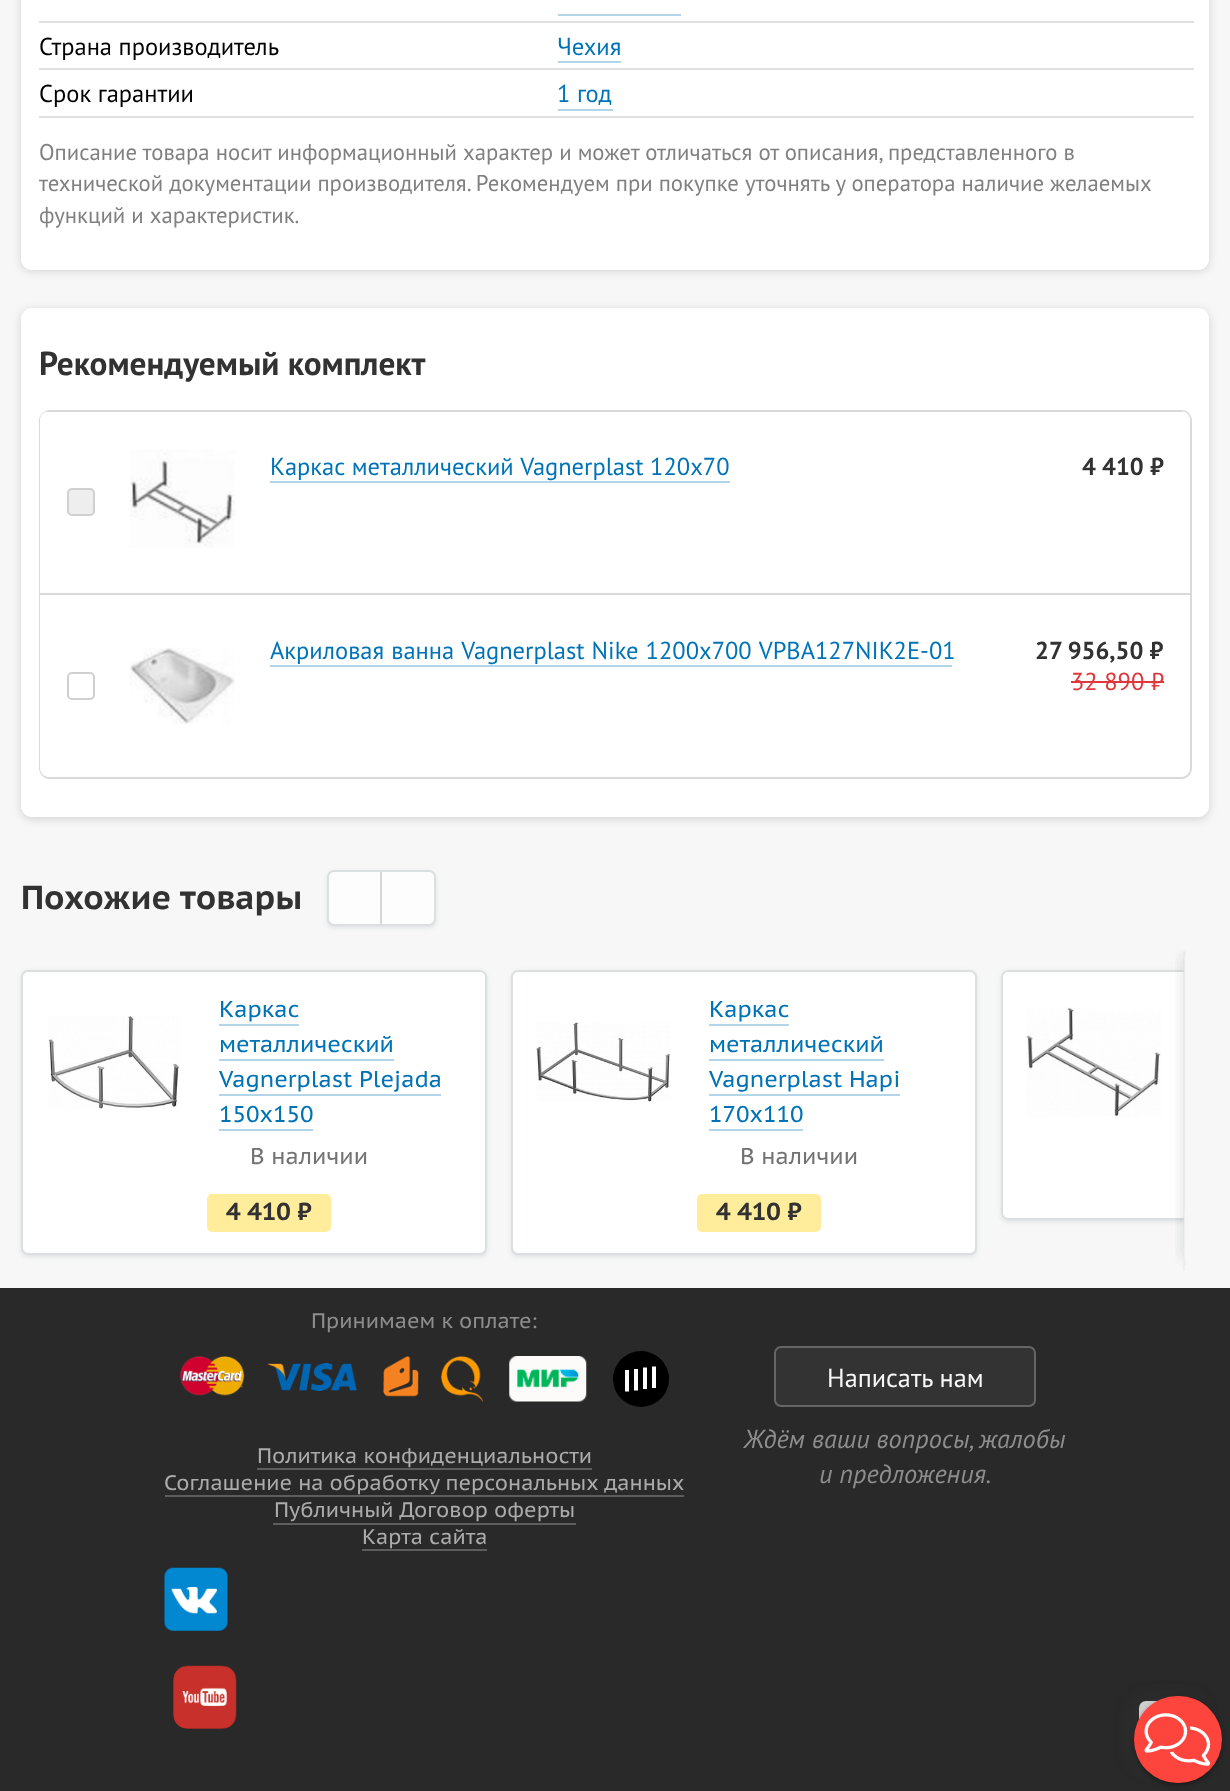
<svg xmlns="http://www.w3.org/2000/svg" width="1230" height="1791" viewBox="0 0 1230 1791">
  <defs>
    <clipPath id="clip1"><rect x="40" y="411" width="1150" height="366" rx="9"/></clipPath>
    <clipPath id="clip2"><rect x="298" y="1195" width="14" height="35"/></clipPath>
    <clipPath id="clip3"><rect x="788" y="1195" width="14" height="35"/></clipPath>
  </defs>
  <rect width="100%" height="100%" fill="rgb(247,247,247)"/>
  <rect x="21" y="-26" width="1188" height="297" rx="11" fill="rgba(0,0,0,0.15)" filter="blur(5px)"/>
  <rect x="21" y="-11" width="1188" height="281" rx="11" fill="rgb(255,255,255)"/>
  <rect x="39" y="21" width="1155" height="2" fill="rgb(224,224,224)"/>
  <rect x="558" y="14" width="123" height="2" fill="rgb(179,213,233)"/>
  <rect x="39" y="68" width="1155" height="2" fill="rgb(224,224,224)"/>
  <text x="39" y="55" font-family="PT Sans" font-size="24.5" fill="rgb(0,0,0)">Страна производитель</text>
  <text x="557" y="55" font-family="PT Sans" font-size="24.5" fill="rgb(0,115,183)">Чехия</text>
  <rect x="558" y="61" width="63" height="2" fill="rgb(179,213,233)"/>
  <rect x="39" y="116" width="1155" height="2" fill="rgb(224,224,224)"/>
  <text x="39" y="102" font-family="PT Sans" font-size="24.5" fill="rgb(0,0,0)">Срок гарантии</text>
  <text x="557" y="102" font-family="PT Sans" font-size="24.5" fill="rgb(0,115,183)">1 год</text>
  <rect x="558" y="109" width="55" height="2" fill="rgb(179,213,233)"/>
  <g font-family="PT Sans" font-size="22.75" fill="rgb(128,128,128)">
    <text>
      <tspan x="39" y="160">Описание товара носит информационный характер и может отличаться от описания, представленного в</tspan>
      <tspan x="39" y="191">технической документации производителя. Рекомендуем при покупке уточнять у оператора наличие желаемых</tspan>
      <tspan x="39" y="223">функций и характеристик.</tspan>
    </text>
  </g>
  <rect x="21" y="310" width="1188" height="509" rx="11" fill="rgba(0,0,0,0.15)" filter="blur(5px)"/>
  <rect x="21" y="308" width="1188" height="509" rx="11" fill="rgb(255,255,255)"/>
  <text x="39" y="375" font-family="PT Sans" font-size="33.25" font-weight="bold" fill="rgb(50,50,50)">Рекомендуемый комплект</text>
  <rect x="40" y="411" width="1151" height="367" rx="10" fill="none" stroke="rgb(217,217,217)" stroke-width="2"/>
  <path d="M49 411H1181C1186 411 1190 415 1190 420V593H40V420C40 415 44 411 49 411Z" fill="rgb(255,255,255)"/>
  <g clip-path="url(#clip1)">
    <rect x="40" y="411" width="1150" height="1" fill="rgb(217,217,217)"/>
  </g>
  <image x="129" y="449" width="106" height="99" href="pic1.png"/>
  <text x="270" y="475" font-family="PT Sans" font-size="24.5" fill="rgb(0,115,183)">Каркас металлический Vagnerplast 120x70</text>
  <rect x="270" y="481" width="460" height="2" fill="rgb(179,213,233)"/>
  <text x="1082" y="475" font-family="PT Sans" font-size="24.5" font-weight="bold" fill="rgb(50,50,50)">4 410 ₽</text>
  <rect x="68" y="489" width="26" height="26" rx="4" fill="rgb(238,238,238)" stroke="rgb(208,208,208)" stroke-width="2"/>
  <path d="M40 593H1190V768C1190 773 1186 777 1181 777H49C44 777 40 773 40 768Z" fill="rgb(255,255,255)"/>
  <rect x="40" y="593" width="1150" height="2" fill="rgb(217,217,217)"/>
  <rect x="68" y="673" width="26" height="26" rx="4" fill="none" stroke="rgb(208,208,208)" stroke-width="2"/>
  <image x="129" y="647" width="106" height="78" href="pic2.png"/>
  <text x="270" y="659" word-spacing="0.5" font-family="PT Sans" font-size="24.5" fill="rgb(0,115,183)">Акриловая ванна Vagnerplast Nike 1200х700 VPBA127NIK2E-01</text>
  <rect x="270" y="665" width="682" height="2" fill="rgb(179,213,233)"/>
  <text x="1035" y="659" font-family="PT Sans" font-size="24.5" font-weight="bold" fill="rgb(50,50,50)">27 956,50 ₽</text>
  <text x="1071" y="690" font-family="PT Sans" font-size="24.5" fill="rgb(223,56,58)">32 890 ₽</text>
  <rect x="1071" y="681" width="93" height="2" fill="rgb(223,56,58)"/>
  <text x="21" y="909" font-family="PT Sans Caption" font-size="33.25" font-weight="bold" fill="rgb(50,50,50)">Похожие товары</text>
  <rect x="327" y="872" width="109" height="56" rx="7" fill="rgb(223,227,229)" filter="blur(2px)"/>
  <rect x="328" y="871" width="107" height="54" rx="6" fill="rgb(253,253,253)" stroke="rgb(220,223,224)" stroke-width="2"/>
  <rect x="380" y="872" width="2" height="52" fill="rgb(214,214,215)"/>
  <rect x="21" y="971" width="466" height="286" rx="7" fill="rgb(223,227,229)" filter="blur(2px)"/>
  <rect x="22" y="971" width="464" height="283" rx="6" fill="rgb(255,255,255)" stroke="rgb(220,223,224)" stroke-width="2"/>
  <image x="48" y="1016" width="132" height="93" href="pic3.png"/>
  <text x="219" y="1017" font-family="PT Sans Caption" font-size="22.75" fill="rgb(0,115,183)">Каркас</text>
  <rect x="219" y="1024" width="80" height="2" fill="rgb(179,213,233)"/>
  <text x="219" y="1052" font-family="PT Sans Caption" font-size="22.75" fill="rgb(0,115,183)">металлический</text>
  <rect x="219" y="1059" width="175" height="2" fill="rgb(179,213,233)"/>
  <text x="219" y="1087" font-family="PT Sans Caption" font-size="22.75" fill="rgb(0,115,183)">Vagnerplast Plejada</text>
  <rect x="219" y="1094" width="222" height="2" fill="rgb(179,213,233)"/>
  <text x="219" y="1122" font-family="PT Sans Caption" font-size="22.75" fill="rgb(0,115,183)">150x150</text>
  <rect x="219" y="1129" width="94" height="2" fill="rgb(179,213,233)"/>
  <text x="250" y="1164" font-family="PT Sans Caption" font-size="22.75" fill="rgb(115,115,115)">В наличии</text>
  <rect x="208" y="1195" width="122" height="36" rx="4" fill="rgb(255,237,156)" stroke="rgb(255,237,156)" stroke-width="2"/>
  <text x="226" y="1220" font-family="PT Sans Caption" font-size="24.5" font-weight="bold" fill="rgb(50,50,50)">4 410</text>
  <g clip-path="url(#clip2)">
    <text x="297" y="1220" font-family="PT Sans Caption" font-size="24.5" font-weight="bold" fill="rgb(50,50,50)">₽</text>
  </g>
  <rect x="511" y="971" width="466" height="286" rx="7" fill="rgb(223,227,229)" filter="blur(2px)"/>
  <rect x="512" y="971" width="464" height="283" rx="6" fill="rgb(255,255,255)" stroke="rgb(220,223,224)" stroke-width="2"/>
  <image x="536" y="1022" width="135" height="80" href="pic4.png"/>
  <text x="709" y="1017" font-family="PT Sans Caption" font-size="22.75" fill="rgb(0,115,183)">Каркас</text>
  <rect x="709" y="1024" width="80" height="2" fill="rgb(179,213,233)"/>
  <text x="709" y="1052" font-family="PT Sans Caption" font-size="22.75" fill="rgb(0,115,183)">металлический</text>
  <rect x="709" y="1059" width="175" height="2" fill="rgb(179,213,233)"/>
  <text x="709" y="1087" font-family="PT Sans Caption" font-size="22.75" fill="rgb(0,115,183)">Vagnerplast Hapi</text>
  <rect x="709" y="1094" width="191" height="2" fill="rgb(179,213,233)"/>
  <text x="709" y="1122" font-family="PT Sans Caption" font-size="22.75" fill="rgb(0,115,183)">170x110</text>
  <rect x="709" y="1129" width="94" height="2" fill="rgb(179,213,233)"/>
  <text x="740" y="1164" font-family="PT Sans Caption" font-size="22.75" fill="rgb(115,115,115)">В наличии</text>
  <rect x="698" y="1195" width="122" height="36" rx="4" fill="rgb(255,237,156)" stroke="rgb(255,237,156)" stroke-width="2"/>
  <text x="716" y="1220" font-family="PT Sans Caption" font-size="24.5" font-weight="bold" fill="rgb(50,50,50)">4 410</text>
  <g clip-path="url(#clip3)">
    <text x="787" y="1220" font-family="PT Sans Caption" font-size="24.5" font-weight="bold" fill="rgb(50,50,50)">₽</text>
  </g>
  <rect x="1001" y="971" width="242" height="251" rx="7" fill="rgb(223,227,229)" filter="blur(2px)"/>
  <path d="M1008 970H1230V1220H1008C1004 1220 1001 1217 1001 1213V977C1001 973 1004 970 1008 970Z" fill="rgb(255,255,255)"/>
  <rect x="1002" y="971" width="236" height="248" rx="6" fill="none" stroke="rgb(220,223,224)" stroke-width="2"/>
  <image x="1026" y="1007" width="135" height="110" href="pic5.png"/>
  <image x="1175" y="949" width="55" height="322" href="pic6.png"/>
  <rect x="0" y="1288" width="1230" height="503" fill="rgb(41,41,41)"/>
  <text x="311" y="1328" font-family="PT Sans Caption" font-size="21" fill="rgb(141,141,141)">Принимаем к оплате:</text>
  <image x="180" y="1356" width="303" height="46" href="pic7.png"/>
  <image x="509" y="1356" width="78" height="46" href="pic8.png"/>
  <circle cx="641" cy="1379" r="28" fill="rgb(0,0,0)"/>
  <path d="M656 1366.5H652V1388H656ZM647 1367.5H643V1389H647ZM638 1369H634V1390.5H638ZM629 1370H625V1391.5H629Z" fill="rgb(255,255,255)"/>
  <text x="257" y="1463" font-family="PT Sans Caption" font-size="21" fill="rgb(171,171,171)">Политика конфиденциальности</text>
  <rect x="257" y="1468" width="335" height="2" fill="rgb(93,93,93)"/>
  <text x="164" y="1490" font-family="PT Sans Caption" font-size="21" fill="rgb(171,171,171)">Соглашение на обработку персональных данных</text>
  <rect x="165" y="1495" width="519" height="2" fill="rgb(93,93,93)"/>
  <text x="274" y="1517" font-family="PT Sans Caption" font-size="21" fill="rgb(171,171,171)">Публичный Договор оферты</text>
  <rect x="273" y="1523" width="303" height="2" fill="rgb(93,93,93)"/>
  <text x="362" y="1544" font-family="PT Sans Caption" font-size="21" fill="rgb(171,171,171)">Карта сайта</text>
  <rect x="362" y="1549" width="125" height="2" fill="rgb(93,93,93)"/>
  <image x="164" y="1567" width="64" height="64" href="pic9.png"/>
  <image x="173" y="1665" width="64" height="64" href="pic10.png"/>
  <rect x="775" y="1347" width="260" height="59" rx="6" fill="rgb(51,51,51)" stroke="rgb(101,101,101)" stroke-width="2"/>
  <text x="827" y="1387" font-family="PT Sans" font-size="26.25" fill="rgb(247,247,247)">Написать нам</text>
  <g font-family="PT Sans" font-size="26.25" font-style="italic" fill="rgb(141,141,141)">
    <text x="744" y="1448">Ждём ваши вопросы, жалобы</text>
    <text x="819" y="1483">и предложения.</text>
  </g>
  <rect x="1139" y="1705" width="56" height="56" rx="7" fill="rgba(69,72,74,0.48)" filter="blur(10.5px)"/>
  <rect x="1139" y="1701" width="56" height="56" rx="7" fill="rgb(206,206,206)"/>
  <rect x="1134" y="1698" width="88" height="87" rx="43.5" fill="rgba(0,0,0,0.33)" filter="blur(2.5px)"/>
  <rect x="1134" y="1696" width="88" height="87" rx="43.5" fill="rgb(254,69,61)"/>
  <image x="1144" y="1713" width="67" height="53" href="pic11.png"/>
</svg>
